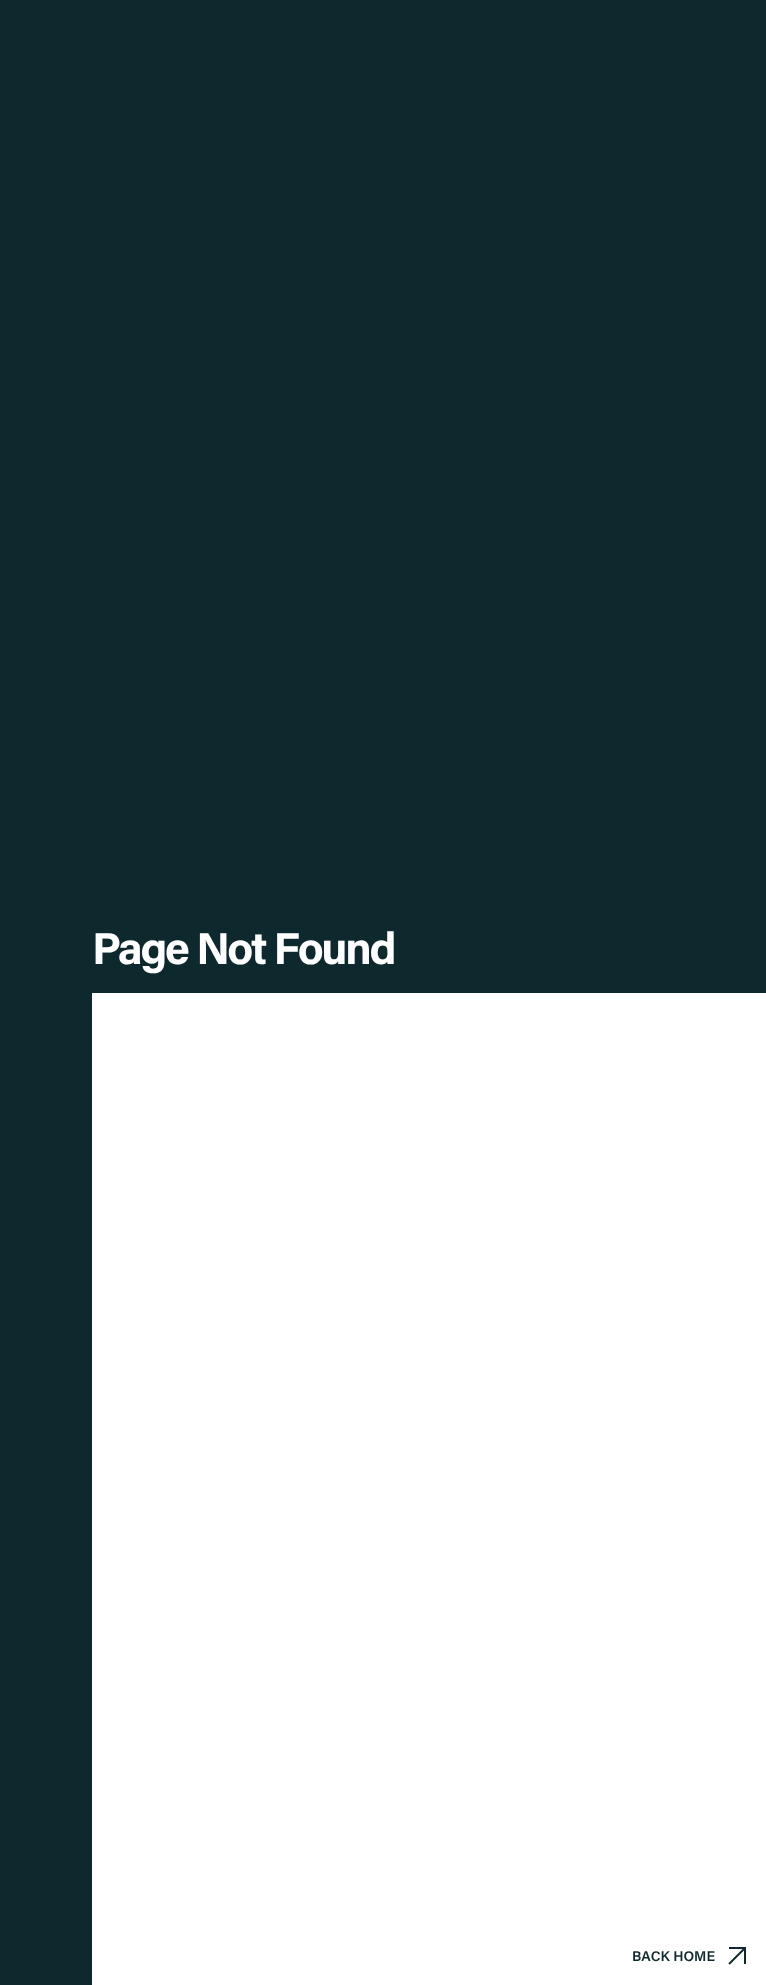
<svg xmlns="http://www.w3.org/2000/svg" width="766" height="1985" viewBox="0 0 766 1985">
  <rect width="100%" height="100%" fill="rgb(14,41,45)"/>
  <text x="92" y="964" font-family="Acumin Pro" font-size="44.75" font-weight="bold" letter-spacing="-2.25" fill="rgb(255,255,255)">Page Not Found</text>
  <rect x="92" y="993" width="674" height="992" fill="rgb(255,255,255)"/>
  <text x="632" y="1961" font-family="Acumin Pro" font-size="14" font-weight="600" fill="rgb(14,41,45)">BACK HOME</text>
  <image x="728" y="1947" width="18" height="18" href="pic1.png"/>
</svg>
